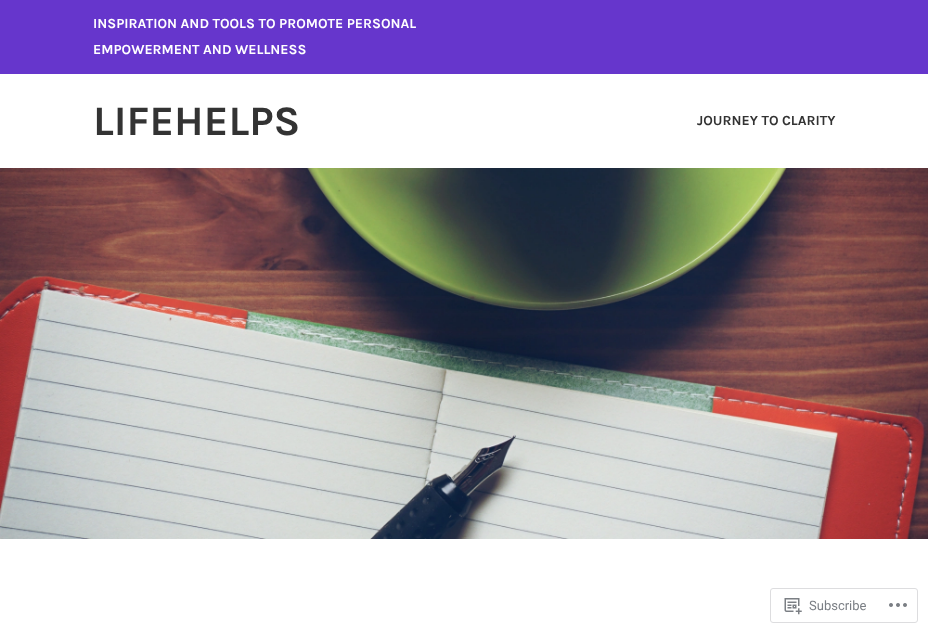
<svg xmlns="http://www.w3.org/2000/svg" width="928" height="633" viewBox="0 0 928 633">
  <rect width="100%" height="100%" fill="rgb(255,255,255)"/>
  <rect x="0" y="0" width="928" height="74" fill="rgb(102,54,204)"/>
  <g font-family="Karla" font-size="14" font-weight="bold" fill="rgb(255,255,255)">
    <text>
      <tspan x="93" y="28">INSPIRATION AND TOOLS TO PROMOTE PERSONAL</tspan>
      <tspan x="93" y="54">EMPOWERMENT AND WELLNESS</tspan>
    </text>
  </g>
  <text x="93" y="135" font-family="Karla" font-size="42" font-weight="bold" fill="rgb(51,51,51)">LIFEHELPS</text>
  <text x="697" y="125" font-family="Karla" font-size="14" font-weight="bold" fill="rgb(51,51,51)">JOURNEY TO CLARITY</text>
  <image x="0" y="168" width="928" height="371" href="pic1.png"/>
  <rect x="770.5" y="588.5" width="147" height="34" rx="2.5" fill="none" stroke="rgb(221,221,223)"/>
  <image x="784" y="598" width="18" height="17" href="pic2.png"/>
  <text x="809" y="610" font-family="Roboto" font-size="13" fill="rgb(123,127,133)">Subscribe</text>
  <image x="889" y="603" width="18" height="4" href="pic3.png"/>
</svg>
